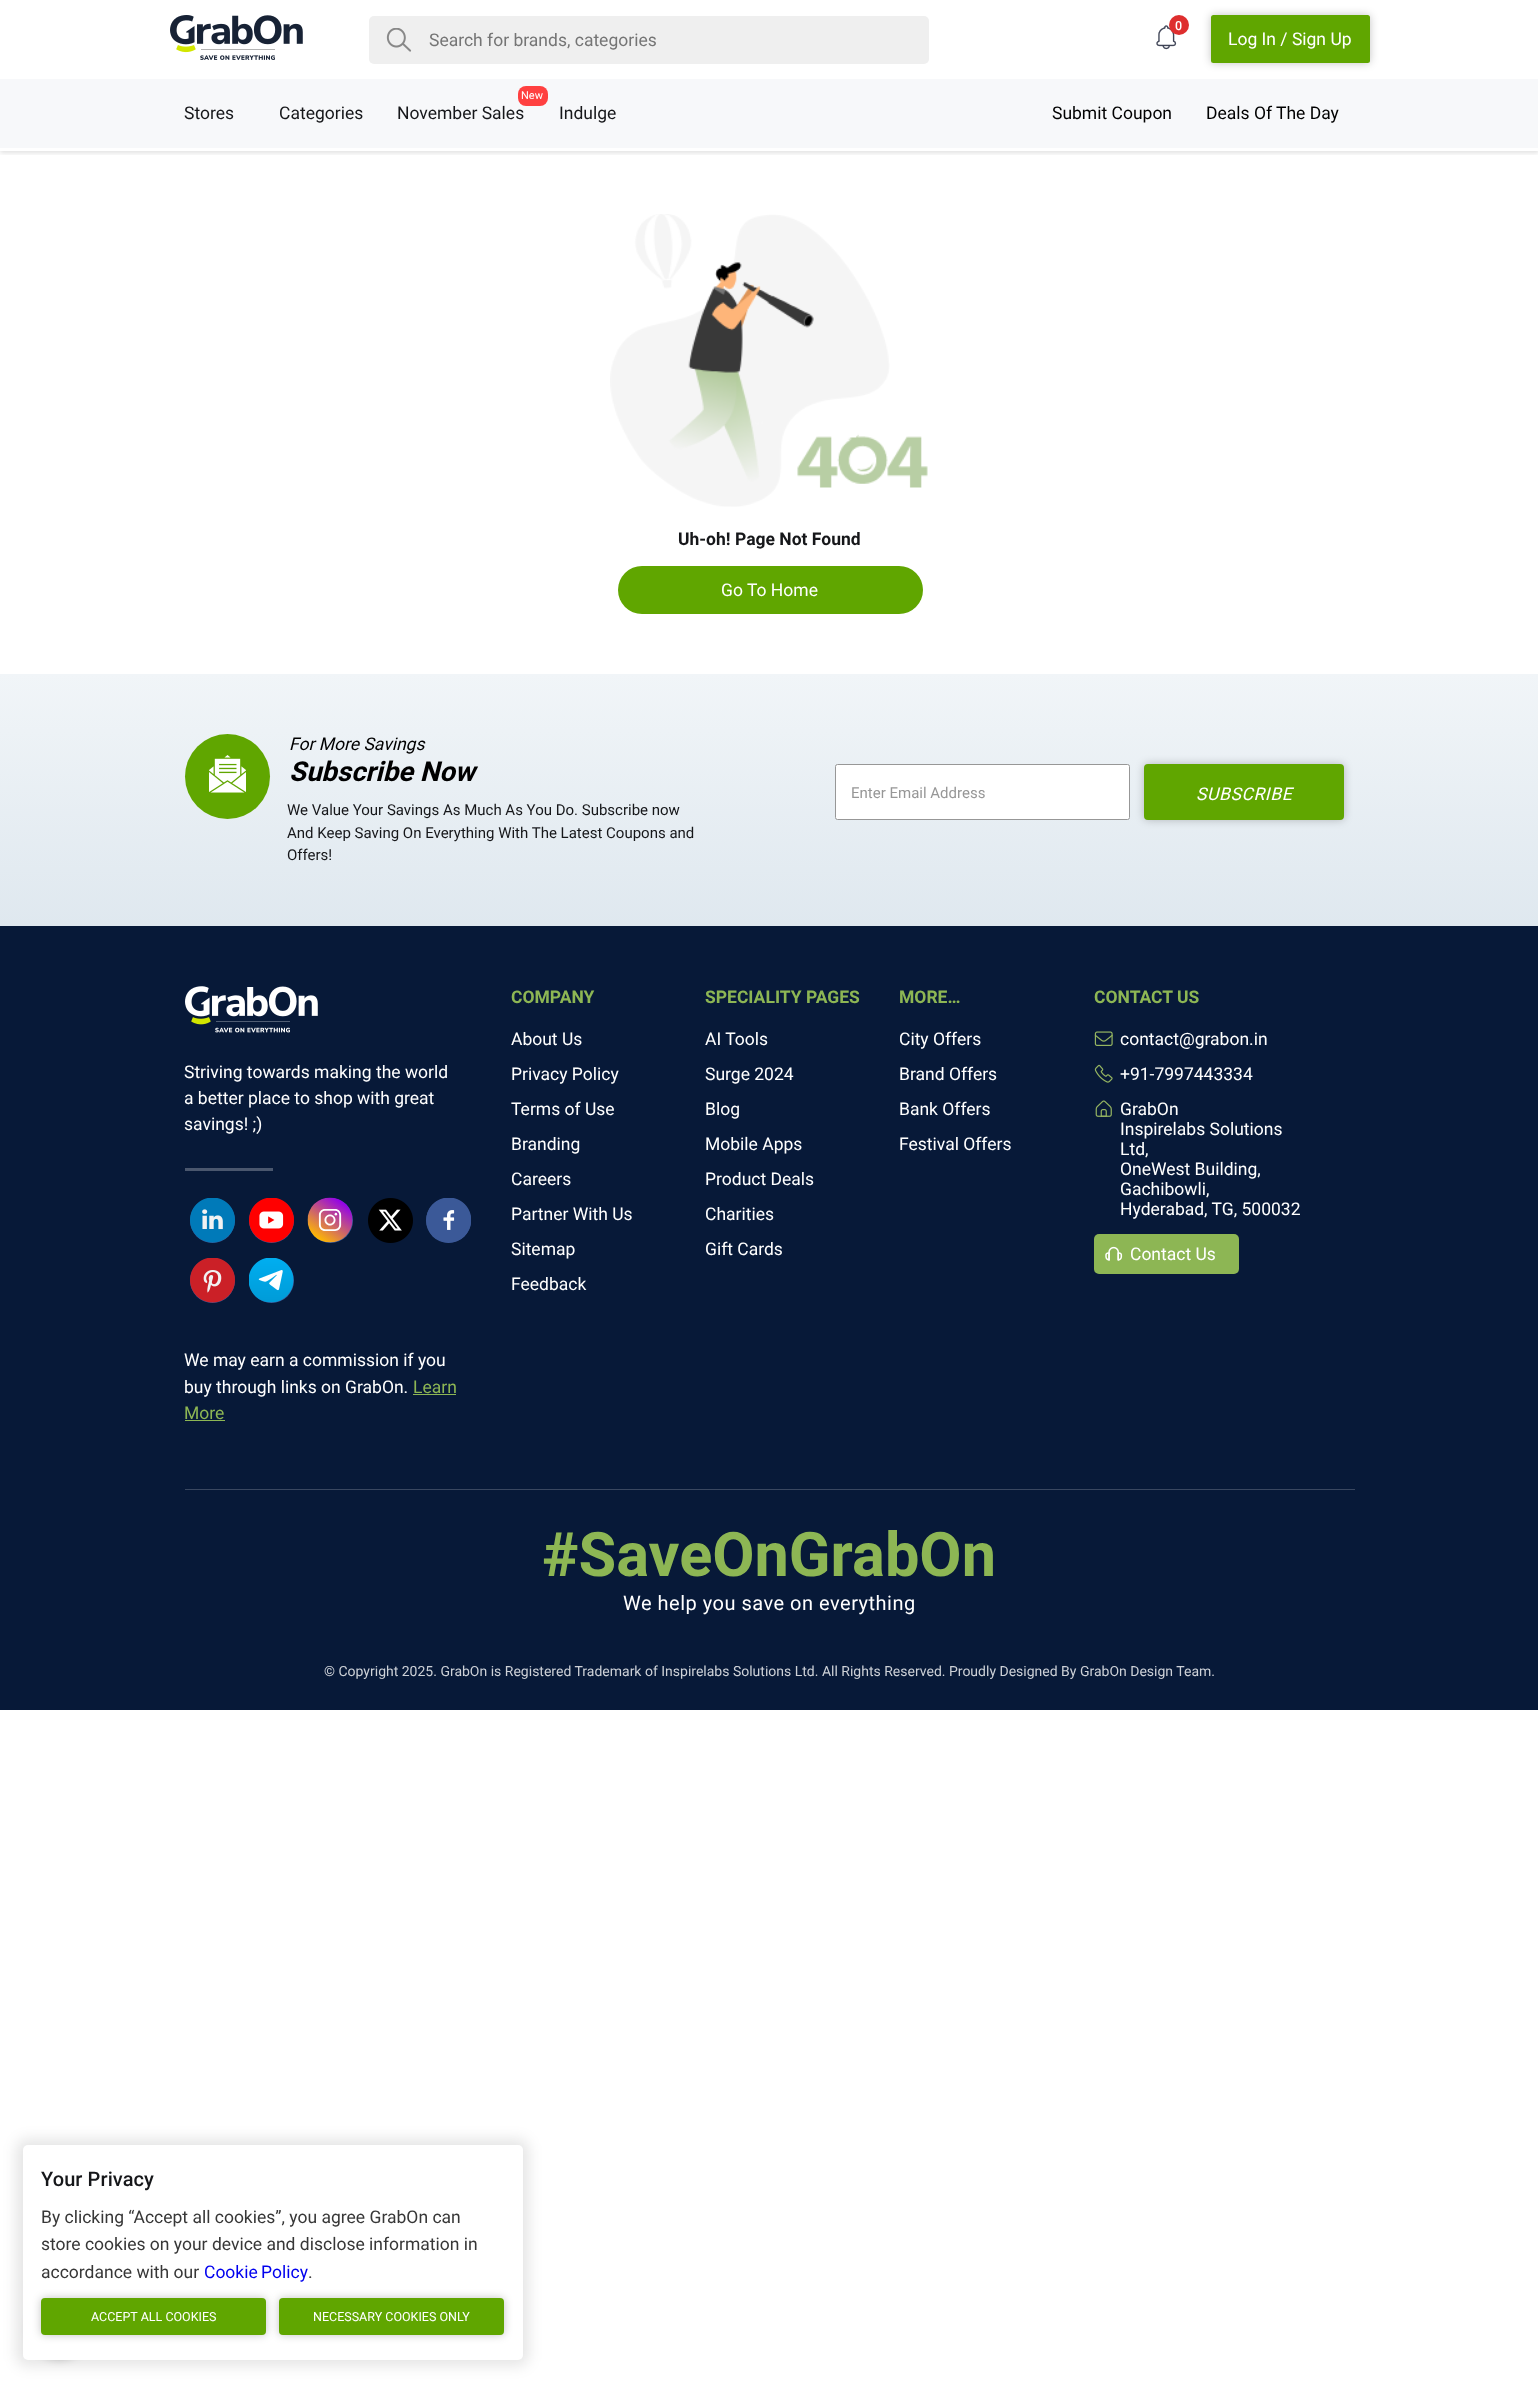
<svg xmlns="http://www.w3.org/2000/svg" width="1538" height="2382" viewBox="0 0 1538 2382">
  <defs>
    <clipPath id="clip1"><rect x="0" y="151" width="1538" height="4"/></clipPath>
    <linearGradient id="g1" gradientUnits="userSpaceOnUse" x1="769" y1="674" x2="769" y2="926"><stop offset="0" stop-color="rgb(241,245,248)"/><stop offset="1" stop-color="rgb(223,232,239)"/></linearGradient>
  </defs>
  <rect width="100%" height="100%" fill="rgb(255,255,255)"/>
  <g clip-path="url(#clip1)">
    <rect x="0" y="1" width="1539" height="152" fill="rgba(0,0,0,0.12)" filter="blur(2.5px)"/>
  </g>
  <image x="170" y="15" width="133" height="45" href="pic1.png"/>
  <rect x="369" y="16" width="560" height="48" rx="5" fill="rgb(239,239,239)"/>
  <image x="386" y="28" width="26" height="24" href="pic2.png"/>
  <text x="429" y="46" font-family="Roboto" font-size="17.5" fill="rgb(117,117,117)">Search for brands, categories</text>
  <image x="1156" y="25" width="21" height="25" href="pic3.png"/>
  <circle cx="1179" cy="25" r="10" fill="rgb(222,46,46)"/>
  <text x="1175" y="30" font-family="Roboto" font-size="12.5" font-weight="500" fill="rgb(255,255,255)">0</text>
  <rect x="1211" y="15" width="159" height="48" rx="2.5" fill="rgba(0,0,0,0.23)" filter="blur(4px)"/>
  <rect x="1211" y="15" width="159" height="48" rx="2.5" fill="rgb(96,166,0)"/>
  <text x="1228" y="45" font-family="Roboto" font-size="17.5" fill="rgb(255,255,255)">Log In / Sign Up</text>
  <rect x="0" y="79" width="1538" height="69" fill="rgb(247,248,250)"/>
  <g font-family="Roboto" font-size="17.5" fill="rgb(22,23,26)">
    <text x="184" y="119">Stores</text>
    <text x="279" y="119">Categories</text>
    <text x="397" y="119">November Sales</text>
  </g>
  <rect x="518" y="86" width="30" height="20" rx="8" fill="rgb(255,64,64)"/>
  <text x="521" y="99" font-family="Roboto" font-size="11" fill="rgb(255,255,255)">New</text>
  <text x="559" y="119" font-family="Roboto" font-size="17.5" fill="rgb(22,23,26)">Indulge</text>
  <g font-family="Roboto" font-size="17.5" fill="rgb(0,0,0)">
    <text x="1052" y="119">Submit Coupon</text>
    <text x="1206" y="119">Deals Of The Day</text>
  </g>
  <image x="610" y="214" width="318" height="293" href="pic4.png"/>
  <text x="678" y="545" font-family="Roboto" font-size="17.5" font-weight="bold" fill="rgb(22,23,26)">Uh-oh! Page Not Found</text>
  <rect x="618" y="566" width="305" height="48" rx="24" fill="rgb(96,166,0)"/>
  <text x="721" y="596" font-family="Roboto" font-size="17.5" fill="rgb(255,255,255)">Go To Home</text>
  <rect x="0" y="674" width="1538" height="252" fill="url(#g1)"/>
  <circle cx="227.5" cy="776.5" r="42.5" fill="rgb(96,166,0)"/>
  <image x="209" y="755" width="37" height="38" href="pic5.png"/>
  <text x="289" y="750" font-family="Roboto" font-size="17.5" font-style="italic" fill="rgb(0,0,0)">For More Savings</text>
  <text x="289" y="781" font-family="Roboto" font-size="27.5" font-weight="bold" font-style="italic" fill="rgb(0,0,0)">Subscribe Now</text>
  <g font-family="Roboto" font-size="15" fill="rgb(22,23,26)">
    <text>
      <tspan x="287" y="815">We Value Your Savings As Much As You Do. Subscribe now</tspan>
      <tspan x="287" y="838">And Keep Saving On Everything With The Latest Coupons and</tspan>
      <tspan x="287" y="860">Offers!</tspan>
    </text>
  </g>
  <rect x="835.5" y="764.5" width="294" height="55" rx="2" fill="rgb(255,255,255)" stroke="rgb(151,151,151)"/>
  <text x="851" y="798" font-family="Roboto" font-size="15" fill="rgb(151,151,151)">Enter Email Address</text>
  <rect x="1144" y="764" width="200" height="56" rx="4" fill="rgba(0,0,0,0.23)" filter="blur(4px)"/>
  <rect x="1144" y="764" width="200" height="56" rx="4" fill="rgb(96,166,0)"/>
  <text x="1196" y="800" font-family="Roboto" font-size="17.5" font-style="italic" letter-spacing="0.6" fill="rgb(255,255,255)">SUBSCRIBE</text>
  <rect x="30" y="2300" width="58" height="58" rx="29" fill="rgba(0,0,0,0.3)" filter="blur(5px)"/>
  <rect x="0" y="926" width="1538" height="784" fill="rgb(7,25,56)"/>
  <image x="185" y="986" width="133" height="47" href="pic6.png"/>
  <g font-family="Roboto" font-size="17.5" fill="rgb(255,255,255)">
    <text>
      <tspan x="184" y="1078">Striving towards making the world</tspan>
      <tspan x="184" y="1104">a better place to shop with great</tspan>
      <tspan x="184" y="1130">savings! ;)</tspan>
    </text>
  </g>
  <rect x="185" y="1168" width="88" height="3" fill="rgb(74,87,110)"/>
  <circle cx="212.5" cy="1220.5" r="22.5" fill="rgb(59,89,152)"/>
  <image x="190" y="1198" width="45" height="45" href="pic7.png"/>
  <circle cx="271.5" cy="1220.5" r="22.5" fill="rgb(59,89,152)"/>
  <image x="249" y="1198" width="45" height="45" href="pic8.png"/>
  <circle cx="330.5" cy="1220.5" r="22.5" fill="rgb(59,89,152)"/>
  <image x="307" y="1197" width="46" height="46" href="pic9.png"/>
  <image x="368" y="1198" width="45" height="45" href="pic10.png"/>
  <circle cx="448.5" cy="1220.5" r="22.5" fill="rgb(59,89,152)"/>
  <image x="426" y="1198" width="45" height="45" href="pic11.png"/>
  <circle cx="212.5" cy="1280.5" r="22.5" fill="rgb(59,89,152)"/>
  <image x="190" y="1258" width="45" height="45" href="pic12.png"/>
  <circle cx="271.5" cy="1280.5" r="22.5" fill="rgb(59,89,152)"/>
  <image x="249" y="1258" width="45" height="45" href="pic13.png"/>
  <g font-family="Roboto" font-size="17.5" fill="rgb(255,255,255)">
    <text>
      <tspan x="184" y="1366">We may earn a commission if you</tspan>
      <tspan x="184" y="1393">buy through links on GrabOn.</tspan>
    </text>
  </g>
  <text x="413" y="1393" font-family="Roboto" font-size="17.5" fill="rgb(141,182,84)">Learn</text>
  <rect x="413" y="1394" width="43" height="1" fill="rgb(141,182,84)"/>
  <text x="184" y="1419" font-family="Roboto" font-size="17.5" fill="rgb(141,182,84)">More</text>
  <rect x="185" y="1420" width="40" height="1" fill="rgb(141,182,84)"/>
  <text x="511" y="1003" font-family="Roboto" font-size="17.5" font-weight="bold" fill="rgb(141,182,84)">COMPANY</text>
  <g font-family="Roboto" font-size="17.5" fill="rgb(255,255,255)">
    <text x="511" y="1045">About Us</text>
    <text x="511" y="1080">Privacy Policy</text>
    <text x="511" y="1115">Terms of Use</text>
    <text x="511" y="1150">Branding</text>
    <text x="511" y="1185">Careers</text>
    <text x="511" y="1220">Partner With Us</text>
    <text x="511" y="1255">Sitemap</text>
    <text x="511" y="1290">Feedback</text>
  </g>
  <text x="705" y="1003" font-family="Roboto" font-size="17.5" font-weight="bold" fill="rgb(141,182,84)">SPECIALITY PAGES</text>
  <g font-family="Roboto" font-size="17.5" fill="rgb(255,255,255)">
    <text x="705" y="1045">AI Tools</text>
    <text x="705" y="1080">Surge 2024</text>
    <text x="705" y="1115">Blog</text>
    <text x="705" y="1150">Mobile Apps</text>
    <text x="705" y="1185">Product Deals</text>
    <text x="705" y="1220">Charities</text>
    <text x="705" y="1255">Gift Cards</text>
  </g>
  <text x="899" y="1003" font-family="Roboto" font-size="17.5" font-weight="bold" fill="rgb(141,182,84)">MORE…</text>
  <g font-family="Roboto" font-size="17.5" fill="rgb(255,255,255)">
    <text x="899" y="1045">City Offers</text>
    <text x="899" y="1080">Brand Offers</text>
    <text x="899" y="1115">Bank Offers</text>
    <text x="899" y="1150">Festival Offers</text>
  </g>
  <text x="1094" y="1003" font-family="Roboto" font-size="17.5" font-weight="bold" fill="rgb(141,182,84)">CONTACT US</text>
  <image x="1094" y="1031" width="19" height="15" href="pic14.png"/>
  <text x="1120" y="1045" font-family="Roboto" font-size="17.5" fill="rgb(255,255,255)">contact@grabon.in</text>
  <image x="1094" y="1064" width="19" height="19" href="pic15.png"/>
  <text x="1120" y="1080" font-family="Roboto" font-size="17.5" fill="rgb(255,255,255)">+91-7997443334</text>
  <image x="1095" y="1100" width="17" height="17" href="pic16.png"/>
  <g font-family="Roboto" font-size="17.5" fill="rgb(255,255,255)">
    <text>
      <tspan x="1120" y="1115">GrabOn</tspan>
      <tspan x="1120" y="1135">Inspirelabs Solutions</tspan>
      <tspan x="1120" y="1155">Ltd,</tspan>
      <tspan x="1120" y="1175">OneWest Building,</tspan>
      <tspan x="1120" y="1195">Gachibowli,</tspan>
      <tspan x="1120" y="1215">Hyderabad, TG, 500032</tspan>
    </text>
  </g>
  <rect x="1094" y="1234" width="145" height="40" rx="5" fill="rgb(141,182,84)"/>
  <image x="1105" y="1246" width="18" height="15" href="pic17.png"/>
  <text x="1130" y="1260" font-family="Roboto" font-size="17.5" fill="rgb(255,255,255)">Contact Us</text>
  <rect x="185" y="1489" width="1170" height="1" fill="rgb(57,71,96)"/>
  <text x="542" y="1576" font-family="Roboto" font-size="61.25" font-weight="bold" fill="rgb(141,182,84)">#SaveOnGrabOn</text>
  <text x="623" y="1610" font-family="Roboto" font-size="20" letter-spacing="0.5" fill="rgb(255,255,255)">We help you save on everything</text>
  <text x="324" y="1676" font-family="Roboto" font-size="14" fill="rgb(205,209,215)">© Copyright 2025. GrabOn is Registered Trademark of Inspirelabs Solutions Ltd. All Rights Reserved. Proudly Designed By GrabOn Design Team.</text>
  <rect x="16" y="2139" width="513" height="227" rx="11" fill="rgba(0,0,0,0.1)" filter="blur(7px)"/>
  <rect x="23" y="2145" width="500" height="215" rx="5" fill="rgb(255,255,255)"/>
  <text x="41" y="2186" font-family="Roboto" font-size="20" font-weight="500" letter-spacing="0.1" fill="rgb(22,23,26)">Your Privacy</text>
  <g font-family="Roboto" font-size="17.5" fill="rgb(55,55,55)">
    <text>
      <tspan x="41" y="2223">By clicking “Accept all cookies”, you agree GrabOn can</tspan>
      <tspan x="41" y="2250">store cookies on your device and disclose information in</tspan>
      <tspan x="41" y="2278">accordance with our</tspan>
    </text>
  </g>
  <text x="204" y="2278" word-spacing="-1" font-family="Roboto" font-size="17.5" fill="rgb(0,0,238)">Cookie Policy</text>
  <text x="308" y="2278" font-family="Roboto" font-size="17.5" fill="rgb(55,55,55)">.</text>
  <rect x="41" y="2298" width="225" height="37" rx="4" fill="rgba(0,0,0,0.23)" filter="blur(4px)"/>
  <rect x="41" y="2298" width="225" height="37" rx="4" fill="rgb(96,166,0)"/>
  <text x="91" y="2321" font-family="Roboto" font-size="12.5" fill="rgb(255,255,255)">ACCEPT ALL COOKIES</text>
  <rect x="279" y="2298" width="225" height="37" rx="4" fill="rgba(0,0,0,0.23)" filter="blur(4px)"/>
  <rect x="279" y="2298" width="225" height="37" rx="4" fill="rgb(96,166,0)"/>
  <text x="313" y="2321" font-family="Roboto" font-size="12.5" fill="rgb(255,255,255)">NECESSARY COOKIES ONLY</text>
</svg>
